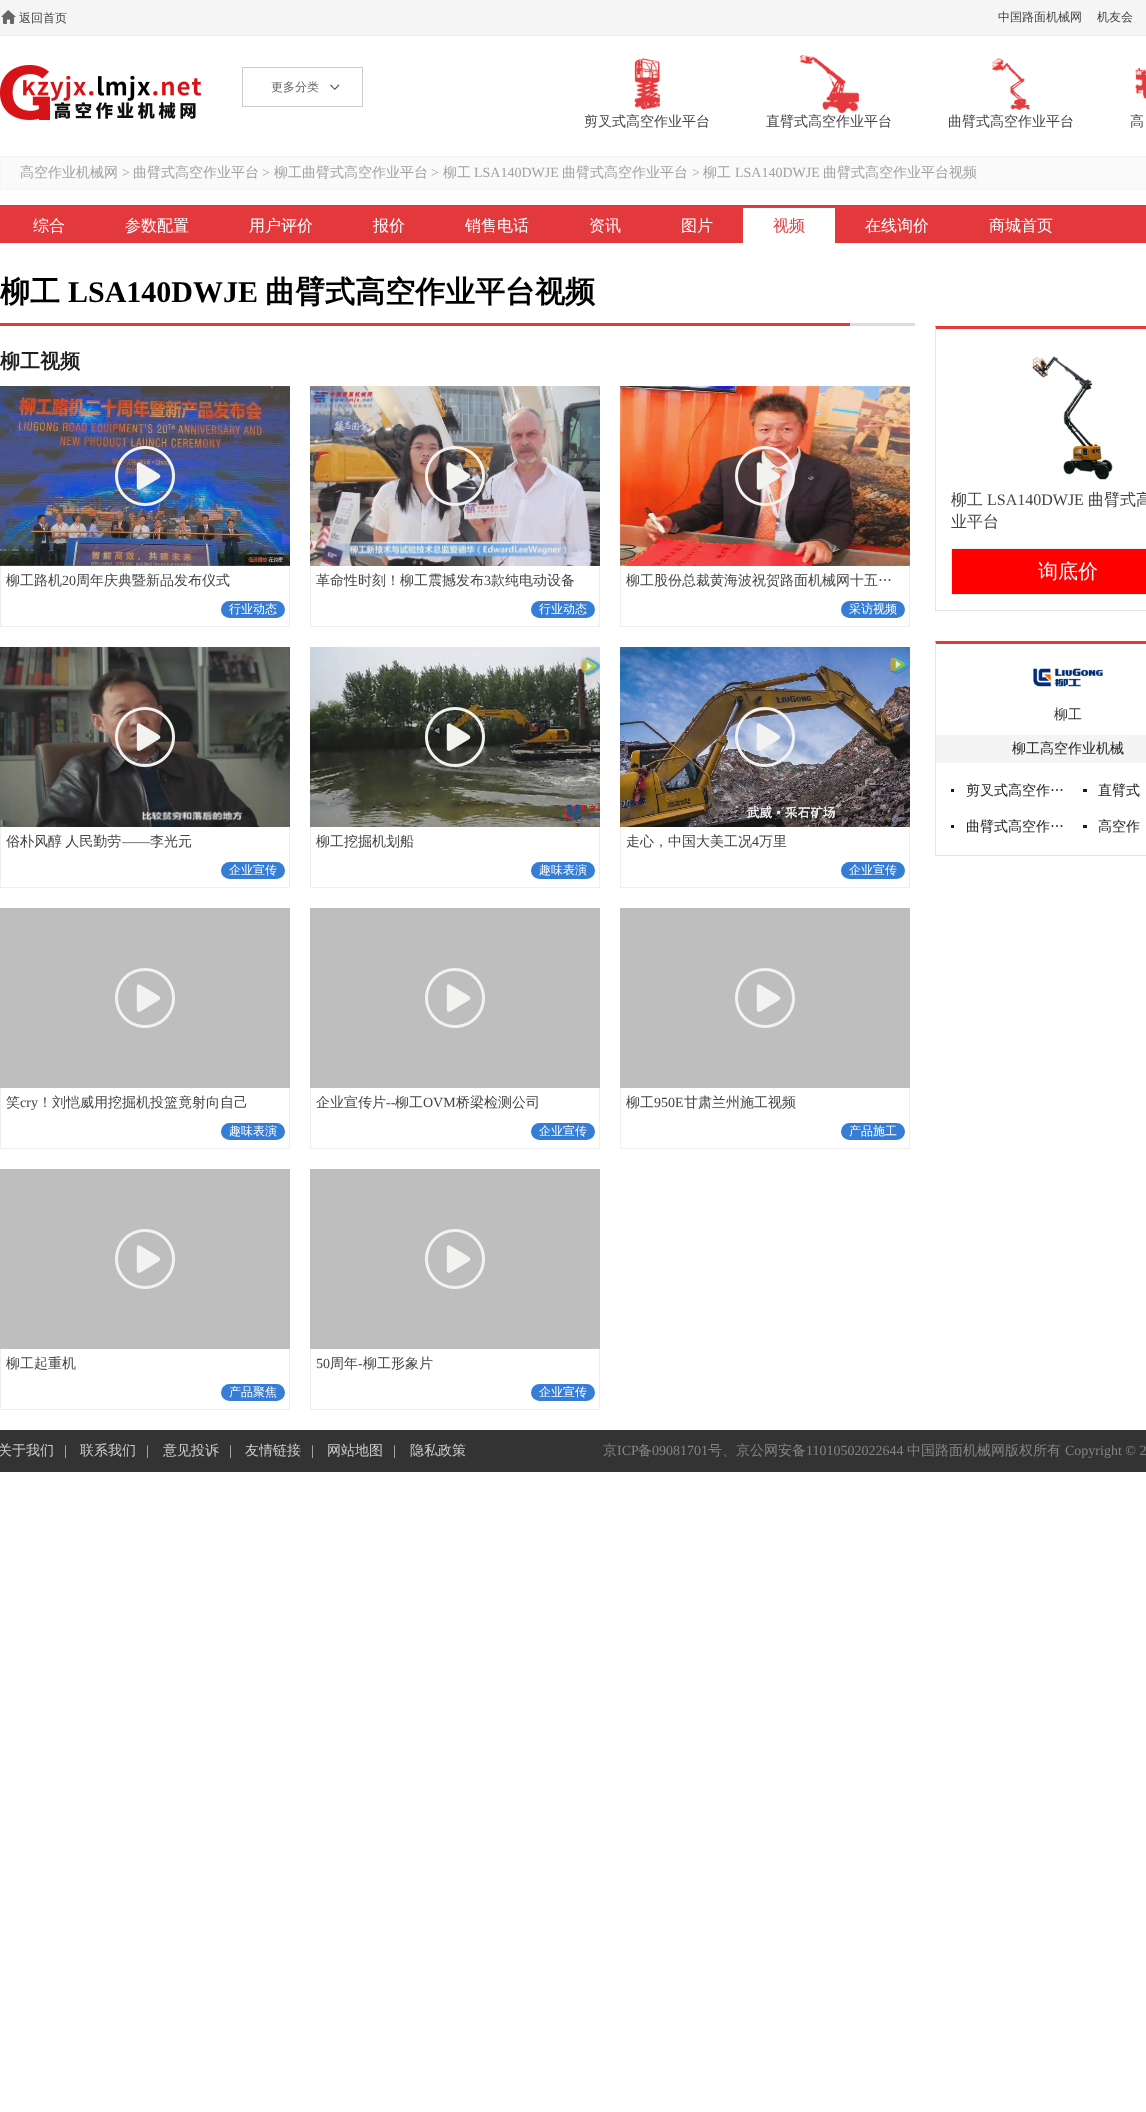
<svg xmlns="http://www.w3.org/2000/svg" width="1146" height="2112" viewBox="0 0 1146 2112">
  <rect width="100%" height="100%" fill="rgb(255,255,255)"/>
  <rect x="0" y="0" width="1146" height="35" fill="rgb(245,245,245)"/>
  <rect x="0" y="35" width="1146" height="1" fill="rgb(238,238,238)"/>
  <image x="1" y="10" width="15" height="14" href="pic1.png"/>
  <g font-family="WenQuanYi Zen Hei" font-size="12" font-weight="500" fill="rgb(68,68,68)">
    <text x="19" y="22">返回首页</text>
    <text x="998" y="21">中国路面机械网</text>
    <text x="1097" y="21">机友会</text>
  </g>
  <image x="0" y="65" width="202" height="55" href="pic2.png"/>
  <image x="330" y="84" width="10" height="6" href="pic3.png"/>
  <rect x="242.5" y="67.5" width="120" height="39" fill="none" stroke="rgb(204,204,204)"/>
  <text x="271" y="91" font-family="WenQuanYi Zen Hei" font-size="12" font-weight="500" fill="rgb(102,102,102)">更多分类</text>
  <image x="634" y="58" width="26" height="52" href="pic4.png"/>
  <text x="584" y="126" font-family="WenQuanYi Zen Hei" font-size="14" font-weight="500" fill="rgb(68,68,68)">剪叉式高空作业平台</text>
  <image x="799" y="55" width="60" height="58" href="pic5.png"/>
  <text x="766" y="126" font-family="WenQuanYi Zen Hei" font-size="14" font-weight="500" fill="rgb(68,68,68)">直臂式高空作业平台</text>
  <image x="992" y="58" width="38" height="52" href="pic6.png"/>
  <text x="948" y="126" font-family="WenQuanYi Zen Hei" font-size="14" font-weight="500" fill="rgb(68,68,68)">曲臂式高空作业平台</text>
  <image x="1135" y="68" width="11" height="31" href="pic7.png"/>
  <text x="1130" y="126" font-family="WenQuanYi Zen Hei" font-size="14" font-weight="500" fill="rgb(68,68,68)">高</text>
  <rect x="0.5" y="156.5" width="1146" height="33" fill="rgb(250,250,250)" stroke="rgb(245,245,245)"/>
  <text x="20" y="177" font-family="WenQuanYi Zen Hei" font-size="14" font-weight="500" fill="rgb(162,162,162)">高空作业机械网</text>
  <text x="122" y="177" font-family="Liberation Serif" font-size="14" fill="rgb(162,162,162)">&gt;</text>
  <text x="133" y="177" font-family="WenQuanYi Zen Hei" font-size="14" font-weight="500" fill="rgb(162,162,162)">曲臂式高空作业平台</text>
  <text x="262" y="177" font-family="Liberation Serif" font-size="14" fill="rgb(162,162,162)">&gt;</text>
  <text x="274" y="177" font-family="WenQuanYi Zen Hei" font-size="14" font-weight="500" fill="rgb(162,162,162)">柳工曲臂式高空作业平台</text>
  <text x="431" y="177" font-family="Liberation Serif" font-size="14" fill="rgb(162,162,162)">&gt;</text>
  <text x="443" y="177" font-family="WenQuanYi Zen Hei" font-size="14" font-weight="500" fill="rgb(162,162,162)">柳工</text>
  <text x="474" y="177" font-family="Liberation Serif" font-size="14" fill="rgb(162,162,162)">LSA140DWJE</text>
  <text x="562" y="177" font-family="WenQuanYi Zen Hei" font-size="14" font-weight="500" fill="rgb(162,162,162)">曲臂式高空作业平台</text>
  <text x="692" y="177" font-family="Liberation Serif" font-size="14" fill="rgb(162,162,162)">&gt;</text>
  <text x="703" y="177" font-family="WenQuanYi Zen Hei" font-size="14" font-weight="500" fill="rgb(162,162,162)">柳工</text>
  <text x="735" y="177" font-family="Liberation Serif" font-size="14" fill="rgb(162,162,162)">LSA140DWJE</text>
  <text x="823" y="177" font-family="WenQuanYi Zen Hei" font-size="14" font-weight="500" fill="rgb(162,162,162)">曲臂式高空作业平台视频</text>
  <rect x="0" y="205" width="1146" height="38" fill="rgb(228,57,60)"/>
  <g font-family="WenQuanYi Zen Hei" font-size="16" font-weight="500" fill="rgb(255,255,255)">
    <text x="33" y="231">综合</text>
    <text x="125" y="231">参数配置</text>
    <text x="249" y="231">用户评价</text>
    <text x="373" y="231">报价</text>
    <text x="465" y="231">销售电话</text>
    <text x="589" y="231">资讯</text>
    <text x="681" y="231">图片</text>
  </g>
  <rect x="743" y="208" width="92" height="35" fill="rgb(255,255,255)"/>
  <text x="773" y="231" font-family="WenQuanYi Zen Hei" font-size="16" font-weight="500" fill="rgb(228,57,60)">视频</text>
  <g font-family="WenQuanYi Zen Hei" font-size="16" font-weight="500" fill="rgb(255,255,255)">
    <text x="865" y="231">在线询价</text>
    <text x="989" y="231">商城首页</text>
  </g>
  <rect x="850" y="323" width="65" height="3" fill="rgb(221,221,221)"/>
  <rect x="0" y="323" width="850" height="3" fill="rgb(228,57,60)"/>
  <text x="0" y="302" font-family="WenQuanYi Zen Hei" font-size="30" font-weight="bold" fill="rgb(0,0,0)">柳工</text>
  <text x="68" y="302" font-family="Liberation Serif" font-size="30" font-weight="bold" fill="rgb(0,0,0)">LSA140DWJE</text>
  <text x="265" y="302" font-family="WenQuanYi Zen Hei" font-size="30" font-weight="bold" fill="rgb(0,0,0)">曲臂式高空作业平台视频</text>
  <text x="0" y="368" font-family="WenQuanYi Zen Hei" font-size="20" font-weight="bold" fill="rgb(32,32,32)">柳工视频</text>
  <rect x="0" y="626" width="290" height="1" fill="rgb(238,238,238)"/>
  <image x="0" y="386" width="290" height="180" href="pic8.png"/>
  <image x="115" y="446" width="60" height="60" href="pic9.png"/>
  <rect x="289" y="566" width="1" height="60" fill="rgb(238,238,238)"/>
  <rect x="0" y="566" width="1" height="60" fill="rgb(238,238,238)"/>
  <text x="6" y="585" font-family="WenQuanYi Zen Hei" font-size="14" font-weight="500" fill="rgb(68,68,68)">柳工路机</text>
  <text x="62" y="585" font-family="Liberation Serif" font-size="14" fill="rgb(68,68,68)">20</text>
  <text x="76" y="585" font-family="WenQuanYi Zen Hei" font-size="14" font-weight="500" fill="rgb(68,68,68)">周年庆典暨新品发布仪式</text>
  <rect x="221" y="601" width="64" height="17" rx="8.5" fill="rgb(54,125,213)"/>
  <text x="229" y="613" font-family="WenQuanYi Zen Hei" font-size="12" font-weight="500" fill="rgb(255,255,255)">行业动态</text>
  <rect x="310" y="626" width="290" height="1" fill="rgb(238,238,238)"/>
  <image x="310" y="386" width="290" height="180" href="pic10.png"/>
  <image x="425" y="446" width="60" height="60" href="pic11.png"/>
  <rect x="599" y="566" width="1" height="60" fill="rgb(238,238,238)"/>
  <rect x="310" y="566" width="1" height="60" fill="rgb(238,238,238)"/>
  <text x="316" y="585" font-family="WenQuanYi Zen Hei" font-size="14" font-weight="500" fill="rgb(68,68,68)">革命性时刻！柳工震撼发布</text>
  <text x="484" y="585" font-family="Liberation Serif" font-size="14" fill="rgb(68,68,68)">3</text>
  <text x="491" y="585" font-family="WenQuanYi Zen Hei" font-size="14" font-weight="500" fill="rgb(68,68,68)">款纯电动设备</text>
  <rect x="531" y="601" width="64" height="17" rx="8.5" fill="rgb(54,125,213)"/>
  <text x="539" y="613" font-family="WenQuanYi Zen Hei" font-size="12" font-weight="500" fill="rgb(255,255,255)">行业动态</text>
  <rect x="620" y="626" width="290" height="1" fill="rgb(238,238,238)"/>
  <image x="620" y="386" width="290" height="180" href="pic12.png"/>
  <image x="735" y="446" width="60" height="60" href="pic13.png"/>
  <rect x="909" y="566" width="1" height="60" fill="rgb(238,238,238)"/>
  <rect x="620" y="566" width="1" height="60" fill="rgb(238,238,238)"/>
  <text x="626" y="585" font-family="WenQuanYi Zen Hei" font-size="14" font-weight="500" fill="rgb(68,68,68)">柳工股份总裁黄海波祝贺路面机械网十五…</text>
  <rect x="841" y="601" width="64" height="17" rx="8.5" fill="rgb(54,125,213)"/>
  <text x="849" y="613" font-family="WenQuanYi Zen Hei" font-size="12" font-weight="500" fill="rgb(255,255,255)">采访视频</text>
  <rect x="0" y="887" width="290" height="1" fill="rgb(238,238,238)"/>
  <image x="0" y="647" width="290" height="180" href="pic14.png"/>
  <image x="115" y="707" width="60" height="60" href="pic15.png"/>
  <rect x="289" y="827" width="1" height="60" fill="rgb(238,238,238)"/>
  <rect x="0" y="827" width="1" height="60" fill="rgb(238,238,238)"/>
  <text x="6" y="846" word-spacing="-1" font-family="WenQuanYi Zen Hei" font-size="14" font-weight="500" fill="rgb(68,68,68)">俗朴风醇 人民勤劳</text>
  <text x="122" y="846" font-family="Liberation Serif" font-size="14" fill="rgb(68,68,68)">——</text>
  <text x="150" y="846" font-family="WenQuanYi Zen Hei" font-size="14" font-weight="500" fill="rgb(68,68,68)">李光元</text>
  <rect x="221" y="862" width="64" height="17" rx="8.5" fill="rgb(54,125,213)"/>
  <text x="229" y="874" font-family="WenQuanYi Zen Hei" font-size="12" font-weight="500" fill="rgb(255,255,255)">企业宣传</text>
  <rect x="310" y="887" width="290" height="1" fill="rgb(238,238,238)"/>
  <image x="310" y="647" width="290" height="180" href="pic16.png"/>
  <image x="425" y="707" width="60" height="60" href="pic17.png"/>
  <rect x="599" y="827" width="1" height="60" fill="rgb(238,238,238)"/>
  <rect x="310" y="827" width="1" height="60" fill="rgb(238,238,238)"/>
  <text x="316" y="846" font-family="WenQuanYi Zen Hei" font-size="14" font-weight="500" fill="rgb(68,68,68)">柳工挖掘机划船</text>
  <rect x="531" y="862" width="64" height="17" rx="8.5" fill="rgb(54,125,213)"/>
  <text x="539" y="874" font-family="WenQuanYi Zen Hei" font-size="12" font-weight="500" fill="rgb(255,255,255)">趣味表演</text>
  <rect x="620" y="887" width="290" height="1" fill="rgb(238,238,238)"/>
  <image x="620" y="647" width="290" height="180" href="pic18.png"/>
  <image x="735" y="707" width="60" height="60" href="pic19.png"/>
  <rect x="909" y="827" width="1" height="60" fill="rgb(238,238,238)"/>
  <rect x="620" y="827" width="1" height="60" fill="rgb(238,238,238)"/>
  <text x="626" y="846" font-family="WenQuanYi Zen Hei" font-size="14" font-weight="500" fill="rgb(68,68,68)">走心，中国大美工况</text>
  <text x="752" y="846" font-family="Liberation Serif" font-size="14" fill="rgb(68,68,68)">4</text>
  <text x="759" y="846" font-family="WenQuanYi Zen Hei" font-size="14" font-weight="500" fill="rgb(68,68,68)">万里</text>
  <rect x="841" y="862" width="64" height="17" rx="8.5" fill="rgb(54,125,213)"/>
  <text x="849" y="874" font-family="WenQuanYi Zen Hei" font-size="12" font-weight="500" fill="rgb(255,255,255)">企业宣传</text>
  <rect x="0" y="1148" width="290" height="1" fill="rgb(238,238,238)"/>
  <rect x="0" y="908" width="290" height="180" fill="rgb(190,190,190)"/>
  <image x="115" y="968" width="60" height="60" href="pic20.png"/>
  <rect x="289" y="1088" width="1" height="60" fill="rgb(238,238,238)"/>
  <rect x="0" y="1088" width="1" height="60" fill="rgb(238,238,238)"/>
  <text x="6" y="1107" font-family="WenQuanYi Zen Hei" font-size="14" font-weight="500" fill="rgb(68,68,68)">笑</text>
  <text x="20" y="1107" font-family="Liberation Serif" font-size="14" fill="rgb(68,68,68)">cry</text>
  <text x="38" y="1107" font-family="WenQuanYi Zen Hei" font-size="14" font-weight="500" fill="rgb(68,68,68)">！刘恺威用挖掘机投篮竟射向自己</text>
  <rect x="221" y="1123" width="64" height="17" rx="8.5" fill="rgb(54,125,213)"/>
  <text x="229" y="1135" font-family="WenQuanYi Zen Hei" font-size="12" font-weight="500" fill="rgb(255,255,255)">趣味表演</text>
  <rect x="310" y="1148" width="290" height="1" fill="rgb(238,238,238)"/>
  <rect x="310" y="908" width="290" height="180" fill="rgb(190,190,190)"/>
  <image x="425" y="968" width="60" height="60" href="pic20.png"/>
  <rect x="599" y="1088" width="1" height="60" fill="rgb(238,238,238)"/>
  <rect x="310" y="1088" width="1" height="60" fill="rgb(238,238,238)"/>
  <text x="316" y="1107" font-family="WenQuanYi Zen Hei" font-size="14" font-weight="500" fill="rgb(68,68,68)">企业宣传片</text>
  <text x="386" y="1107" font-family="Liberation Serif" font-size="14" fill="rgb(68,68,68)">--</text>
  <text x="395" y="1107" font-family="WenQuanYi Zen Hei" font-size="14" font-weight="500" fill="rgb(68,68,68)">柳工</text>
  <text x="423" y="1107" font-family="Liberation Serif" font-size="14" fill="rgb(68,68,68)">OVM</text>
  <text x="456" y="1107" font-family="WenQuanYi Zen Hei" font-size="14" font-weight="500" fill="rgb(68,68,68)">桥梁检测公司</text>
  <rect x="531" y="1123" width="64" height="17" rx="8.5" fill="rgb(54,125,213)"/>
  <text x="539" y="1135" font-family="WenQuanYi Zen Hei" font-size="12" font-weight="500" fill="rgb(255,255,255)">企业宣传</text>
  <rect x="620" y="1148" width="290" height="1" fill="rgb(238,238,238)"/>
  <rect x="620" y="908" width="290" height="180" fill="rgb(190,190,190)"/>
  <image x="735" y="968" width="60" height="60" href="pic20.png"/>
  <rect x="909" y="1088" width="1" height="60" fill="rgb(238,238,238)"/>
  <rect x="620" y="1088" width="1" height="60" fill="rgb(238,238,238)"/>
  <text x="626" y="1107" font-family="WenQuanYi Zen Hei" font-size="14" font-weight="500" fill="rgb(68,68,68)">柳工</text>
  <text x="654" y="1107" font-family="Liberation Serif" font-size="14" fill="rgb(68,68,68)">950E</text>
  <text x="684" y="1107" font-family="WenQuanYi Zen Hei" font-size="14" font-weight="500" fill="rgb(68,68,68)">甘肃兰州施工视频</text>
  <rect x="841" y="1123" width="64" height="17" rx="8.5" fill="rgb(54,125,213)"/>
  <text x="849" y="1135" font-family="WenQuanYi Zen Hei" font-size="12" font-weight="500" fill="rgb(255,255,255)">产品施工</text>
  <rect x="0" y="1409" width="290" height="1" fill="rgb(238,238,238)"/>
  <rect x="0" y="1169" width="290" height="180" fill="rgb(190,190,190)"/>
  <image x="115" y="1229" width="60" height="60" href="pic20.png"/>
  <rect x="289" y="1349" width="1" height="60" fill="rgb(238,238,238)"/>
  <rect x="0" y="1349" width="1" height="60" fill="rgb(238,238,238)"/>
  <text x="6" y="1368" font-family="WenQuanYi Zen Hei" font-size="14" font-weight="500" fill="rgb(68,68,68)">柳工起重机</text>
  <rect x="221" y="1384" width="64" height="17" rx="8.5" fill="rgb(54,125,213)"/>
  <text x="229" y="1396" font-family="WenQuanYi Zen Hei" font-size="12" font-weight="500" fill="rgb(255,255,255)">产品聚焦</text>
  <rect x="310" y="1409" width="290" height="1" fill="rgb(238,238,238)"/>
  <rect x="310" y="1169" width="290" height="180" fill="rgb(190,190,190)"/>
  <image x="425" y="1229" width="60" height="60" href="pic20.png"/>
  <rect x="599" y="1349" width="1" height="60" fill="rgb(238,238,238)"/>
  <rect x="310" y="1349" width="1" height="60" fill="rgb(238,238,238)"/>
  <text x="316" y="1368" font-family="Liberation Serif" font-size="14" fill="rgb(68,68,68)">50</text>
  <text x="330" y="1368" font-family="WenQuanYi Zen Hei" font-size="14" font-weight="500" fill="rgb(68,68,68)">周年</text>
  <text x="358" y="1368" font-family="Liberation Serif" font-size="14" fill="rgb(68,68,68)">-</text>
  <text x="363" y="1368" font-family="WenQuanYi Zen Hei" font-size="14" font-weight="500" fill="rgb(68,68,68)">柳工形象片</text>
  <rect x="531" y="1384" width="64" height="17" rx="8.5" fill="rgb(54,125,213)"/>
  <text x="539" y="1396" font-family="WenQuanYi Zen Hei" font-size="12" font-weight="500" fill="rgb(255,255,255)">企业宣传</text>
  <path d="M935 326H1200L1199 329H936Z" fill="rgb(228,57,60)"/>
  <rect x="935" y="610" width="211" height="1" fill="rgb(229,229,229)"/>
  <path d="M935 611V326L936 329V610Z" fill="rgb(229,229,229)"/>
  <image x="1032" y="356" width="81" height="124" href="pic21.png"/>
  <text x="951" y="505" font-family="WenQuanYi Zen Hei" font-size="16" font-weight="500" fill="rgb(68,68,68)">柳工</text>
  <text x="987" y="505" font-family="Liberation Serif" font-size="16" fill="rgb(68,68,68)">LSA140DWJE</text>
  <g font-family="WenQuanYi Zen Hei" font-size="16" font-weight="500" fill="rgb(68,68,68)">
    <text x="1088" y="505">曲臂式高</text>
    <text x="951" y="527">业平台</text>
  </g>
  <rect x="951.5" y="548.5" width="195" height="46" fill="rgb(255,0,0)" stroke="rgb(238,238,238)"/>
  <text x="1038" y="578" font-family="WenQuanYi Zen Hei" font-size="20" font-weight="500" fill="rgb(255,255,255)">询底价</text>
  <path d="M935 641H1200L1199 644H936Z" fill="rgb(228,57,60)"/>
  <rect x="935" y="855" width="211" height="1" fill="rgb(229,229,229)"/>
  <path d="M935 856V641L936 644V855Z" fill="rgb(229,229,229)"/>
  <image x="1033" y="668" width="70" height="19" href="pic22.png"/>
  <text x="1054" y="719" font-family="WenQuanYi Zen Hei" font-size="14" font-weight="500" fill="rgb(50,50,50)">柳工</text>
  <rect x="936" y="735" width="210" height="28" fill="rgb(244,244,244)"/>
  <text x="1012" y="753" font-family="WenQuanYi Zen Hei" font-size="14" font-weight="500" fill="rgb(32,32,32)">柳工高空作业机械</text>
  <rect x="951" y="789" width="3" height="3" fill="rgb(28,28,28)"/>
  <text x="966" y="795" font-family="WenQuanYi Zen Hei" font-size="14" font-weight="500" fill="rgb(32,32,32)">剪叉式高空作…</text>
  <rect x="1083" y="789" width="4" height="3" fill="rgb(28,28,28)"/>
  <text x="1098" y="795" font-family="WenQuanYi Zen Hei" font-size="14" font-weight="500" fill="rgb(32,32,32)">直臂式</text>
  <rect x="951" y="825" width="3" height="3" fill="rgb(28,28,28)"/>
  <text x="966" y="831" font-family="WenQuanYi Zen Hei" font-size="14" font-weight="500" fill="rgb(32,32,32)">曲臂式高空作…</text>
  <rect x="1083" y="825" width="4" height="3" fill="rgb(28,28,28)"/>
  <text x="1098" y="831" font-family="WenQuanYi Zen Hei" font-size="14" font-weight="500" fill="rgb(32,32,32)">高空作</text>
  <rect x="0" y="1430" width="1146" height="42" fill="rgb(51,51,51)"/>
  <text x="-2" y="1455" font-family="WenQuanYi Zen Hei" font-size="14" font-weight="500" fill="rgb(204,204,204)">关于我们</text>
  <text x="64" y="1455" font-family="Liberation Serif" font-size="14" fill="rgb(204,204,204)">|</text>
  <text x="80" y="1455" font-family="WenQuanYi Zen Hei" font-size="14" font-weight="500" fill="rgb(204,204,204)">联系我们</text>
  <text x="146" y="1455" font-family="Liberation Serif" font-size="14" fill="rgb(204,204,204)">|</text>
  <text x="163" y="1455" font-family="WenQuanYi Zen Hei" font-size="14" font-weight="500" fill="rgb(204,204,204)">意见投诉</text>
  <text x="229" y="1455" font-family="Liberation Serif" font-size="14" fill="rgb(204,204,204)">|</text>
  <text x="245" y="1455" font-family="WenQuanYi Zen Hei" font-size="14" font-weight="500" fill="rgb(204,204,204)">友情链接</text>
  <text x="311" y="1455" font-family="Liberation Serif" font-size="14" fill="rgb(204,204,204)">|</text>
  <text x="327" y="1455" font-family="WenQuanYi Zen Hei" font-size="14" font-weight="500" fill="rgb(204,204,204)">网站地图</text>
  <text x="393" y="1455" font-family="Liberation Serif" font-size="14" fill="rgb(204,204,204)">|</text>
  <text x="410" y="1455" font-family="WenQuanYi Zen Hei" font-size="14" font-weight="500" fill="rgb(204,204,204)">隐私政策</text>
  <text x="603" y="1455" font-family="WenQuanYi Zen Hei" font-size="14" font-weight="500" fill="rgb(132,132,132)">京</text>
  <text x="617" y="1455" font-family="Liberation Serif" font-size="14" fill="rgb(132,132,132)">ICP</text>
  <text x="638" y="1455" font-family="WenQuanYi Zen Hei" font-size="14" font-weight="500" fill="rgb(132,132,132)">备</text>
  <text x="652" y="1455" font-family="Liberation Serif" font-size="14" fill="rgb(132,132,132)">09081701</text>
  <text x="708" y="1455" font-family="WenQuanYi Zen Hei" font-size="14" font-weight="500" fill="rgb(132,132,132)">号、京公网安备</text>
  <text x="806" y="1455" font-family="Liberation Serif" font-size="14" fill="rgb(132,132,132)">11010502022644</text>
  <text x="907" y="1455" font-family="WenQuanYi Zen Hei" font-size="14" font-weight="500" fill="rgb(132,132,132)">中国路面机械网版权所有</text>
  <text x="1065" y="1455" font-family="Liberation Serif" font-size="14" fill="rgb(132,132,132)">Copyright © 2</text>
</svg>
